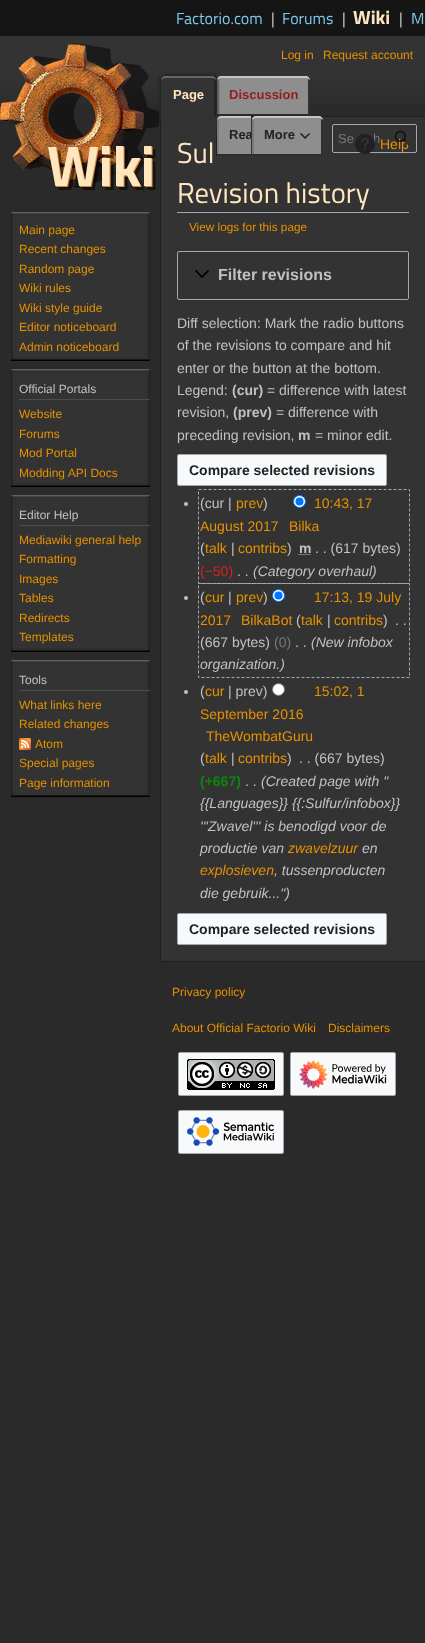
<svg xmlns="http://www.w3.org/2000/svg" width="425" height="1643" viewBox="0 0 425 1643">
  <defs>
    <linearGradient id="g1" gradientUnits="userSpaceOnUse" x1="213" y1="36" x2="213" y2="116"><stop offset="0.5" stop-color="rgb(51,51,51)"/><stop offset="1" stop-color="rgb(42,42,42)"/></linearGradient>
    <linearGradient id="g2" gradientUnits="userSpaceOnUse" x1="161" y1="76" x2="161" y2="116"><stop offset="0.05" stop-color="rgb(51,51,51)"/><stop offset="0.6" stop-color="rgb(31,31,31)"/></linearGradient>
    <linearGradient id="g3" gradientUnits="userSpaceOnUse" x1="217" y1="116" x2="217" y2="156"><stop offset="0.05" stop-color="rgb(51,51,51)"/><stop offset="0.6" stop-color="rgb(31,31,31)"/></linearGradient>
    <linearGradient id="g4" gradientUnits="userSpaceOnUse" x1="234" y1="116" x2="234" y2="156"><stop offset="0.2" stop-color="rgb(51,51,51)"/><stop offset="1" stop-color="rgb(34,34,34)"/></linearGradient>
    <clipPath id="clip1"><rect x="217" y="116" width="34" height="40"/></clipPath>
  </defs>
  <rect width="100%" height="100%" fill="rgb(42,42,42)"/>
  <rect x="0" y="0" width="425" height="36" fill="rgb(21,21,21)"/>
  <text x="176" y="24" font-family="Titillium Web" font-size="16" fill="rgb(125,202,237)">Factorio.com</text>
  <text x="271" y="24" font-family="Titillium Web" font-size="16" fill="rgb(204,204,204)">|</text>
  <text x="282" y="24" font-family="Titillium Web" font-size="16" fill="rgb(125,202,237)">Forums</text>
  <text x="342" y="24" font-family="Titillium Web" font-size="16" fill="rgb(204,204,204)">|</text>
  <text x="353" y="24" font-family="Titillium Web" font-size="19" font-weight="bold" fill="rgb(255,230,192)">Wiki</text>
  <text x="399" y="24" font-family="Titillium Web" font-size="16" fill="rgb(204,204,204)">|</text>
  <text x="411" y="24" font-family="Titillium Web" font-size="16" fill="rgb(125,202,237)">M</text>
  <rect x="0" y="36" width="425" height="69" fill="url(#g1)"/>
  <g font-family="Liberation Sans" font-size="12" fill="rgb(230,145,0)">
    <text x="281" y="59">Log in</text>
    <text x="323" y="59">Request account</text>
  </g>
  <rect x="160" y="76" width="1" height="40" fill="url(#g2)"/>
  <rect x="161" y="87" width="55" height="30" fill="rgb(51,51,51)"/>
  <path d="M221 76H306C308 76 310 78 310 80V116H217V80C217 78 219 76 221 76Z" fill="rgb(142,142,142)"/>
  <path d="M220.5 76C218.5 76 217 78 217 80V116H219V80C219 78.5 219.5 77 220.5 76Z" fill="rgb(122,122,122)"/>
  <path d="M308 116H310V80C310 78 308.5 76 306.5 76C307.5 77 308 78.5 308 80Z" fill="rgb(55,47,42)"/>
  <rect x="217" y="114" width="93" height="2" fill="rgb(45,45,45)"/>
  <path d="M221 78H307L310 80C310 78 308 76 306 76H221C219 76 217 78 217 80C218 79 220 78 221 78Z" fill="rgb(197,197,197)"/>
  <rect x="161" y="117" width="264" height="844" fill="rgb(51,51,51)"/>
  <rect x="216" y="116" width="1" height="40" fill="url(#g3)"/>
  <rect x="217" y="116" width="4" height="1" fill="url(#g4)"/>
  <path d="M221 116H251V156H217V120C217 118 219 116 221 116Z" fill="rgb(142,142,142)"/>
  <path d="M220.5 116C218.5 116 217 118 217 120V156H219V120C219 118.5 219.5 117 220.5 116Z" fill="rgb(122,122,122)"/>
  <g clip-path="url(#clip1)">
    <path d="M221 118H269C270 118 272 119 273 120C273 118 271 116 269 116H221C219 116 217 118 217 120C218 119 220 118 221 118Z" fill="rgb(197,197,197)"/>
  </g>
  <image x="0" y="43" width="160" height="147" href="pic3.png"/>
  <rect x="160" y="961" width="265" height="1" fill="rgb(31,31,31)"/>
  <rect x="160" y="116" width="1" height="846" fill="rgb(31,31,31)"/>
  <rect x="161" y="76" width="55" height="40" rx="4" fill="rgb(16,16,16)" filter="blur(2px)"/>
  <rect x="161" y="82" width="55" height="40" rx="4" fill="rgb(51,51,51)" filter="blur(2px)"/>
  <path d="M165 76H212C214 76 216 78 216 80V116H161V80C161 78 163 76 165 76Z" fill="rgb(51,51,51)"/>
  <path d="M214 116H216V80C216 78 214.5 76 212.5 76C213.5 77 214 78.5 214 80Z" fill="rgb(38,34,32)"/>
  <path d="M165 78H212C213 78 215 79 216 80C216 78 214 76 212 76H165C163 76 161 78 161 80C162 79 164 78 165 78Z" fill="rgb(104,102,101)"/>
  <text x="173" y="99" font-family="Liberation Sans" font-size="13" font-weight="bold" fill="rgb(255,230,192)">Page</text>
  <text x="229" y="99" font-family="Liberation Sans" font-size="13" font-weight="bold" fill="rgb(145,29,29)">Discussion</text>
  <rect x="217" y="154" width="34" height="2" fill="rgb(45,45,45)"/>
  <g clip-path="url(#clip1)">
    <text x="229" y="139" font-family="Liberation Sans" font-size="13" font-weight="bold" fill="rgb(32,33,34)">Rea</text>
  </g>
  <rect x="251" y="116" width="174" height="1" fill="rgb(31,31,31)"/>
  <path d="M256 116H319C321 116 323 118 323 120V156H252V120C252 118 254 116 256 116Z" fill="rgb(142,142,142)"/>
  <path d="M321 156H323V120C323 118 321.5 116 319.5 116C320.5 117 321 118.5 321 120Z" fill="rgb(55,47,42)"/>
  <path d="M255.5 116C253.5 116 252 118 252 120V156H254V120C254 118.5 254.5 117 255.5 116Z" fill="rgb(122,122,122)"/>
  <rect x="252" y="154" width="71" height="2" fill="rgb(45,45,45)"/>
  <path d="M256 118H319C320 118 322 119 323 120C323 118 321 116 319 116H256C254 116 252 118 252 120C253 119 255 118 256 118Z" fill="rgb(197,197,197)"/>
  <text x="264" y="139" font-family="Liberation Sans" font-size="13" font-weight="bold" fill="rgb(32,33,34)">More</text>
  <image x="300" y="133" width="10" height="6" href="pic1.png"/>
  <rect x="332.5" y="124.5" width="84" height="28" rx="1.5" fill="none" stroke="rgb(162,169,177)"/>
  <g font-family="Liberation Sans" font-size="13" fill="rgb(114,119,125)">
    <text x="338" y="143">Se</text>
    <text x="373" y="143">h</text>
  </g>
  <text x="380" y="149" font-family="Liberation Sans" font-size="14" fill="rgb(230,145,0)">Help</text>
  <image x="394" y="130" width="15" height="15" href="pic2.png"/>
  <rect x="15" y="216" width="131" height="141" fill="rgb(51,51,51)"/>
  <image x="11" y="212" width="139" height="149" href="pic4.png"/>
  <g font-family="Liberation Sans" font-size="12" fill="rgb(230,145,0)">
    <text>
      <tspan x="19" y="234">Main page</tspan>
      <tspan x="19" y="253">Recent changes</tspan>
      <tspan x="19" y="273">Random page</tspan>
      <tspan x="19" y="292">Wiki rules</tspan>
      <tspan x="19" y="312">Wiki style guide</tspan>
      <tspan x="19" y="331">Editor noticeboard</tspan>
      <tspan x="19" y="351">Admin noticeboard</tspan>
    </text>
  </g>
  <rect x="15" y="373" width="131" height="110" fill="rgb(51,51,51)"/>
  <image x="11" y="369" width="139" height="118" href="pic5.png"/>
  <rect x="19" y="399" width="131" height="1" fill="rgb(76,76,76)"/>
  <text x="19" y="393" font-family="Liberation Sans" font-size="12" fill="rgb(193,193,193)">Official Portals</text>
  <g font-family="Liberation Sans" font-size="12" fill="rgb(230,145,0)">
    <text>
      <tspan x="19" y="418">Website</tspan>
      <tspan x="19" y="438">Forums</tspan>
      <tspan x="19" y="457">Mod Portal</tspan>
      <tspan x="19" y="477">Modding API Docs</tspan>
    </text>
  </g>
  <rect x="15" y="499" width="131" height="149" fill="rgb(51,51,51)"/>
  <image x="11" y="495" width="139" height="157" href="pic6.png"/>
  <rect x="19" y="525" width="131" height="1" fill="rgb(76,76,76)"/>
  <text x="19" y="519" font-family="Liberation Sans" font-size="12" fill="rgb(193,193,193)">Editor Help</text>
  <g font-family="Liberation Sans" font-size="12" fill="rgb(230,145,0)">
    <text>
      <tspan x="19" y="544">Mediawiki general help</tspan>
      <tspan x="19" y="563">Formatting</tspan>
      <tspan x="19" y="583">Images</tspan>
      <tspan x="19" y="602">Tables</tspan>
      <tspan x="19" y="622">Redirects</tspan>
      <tspan x="19" y="641">Templates</tspan>
    </text>
  </g>
  <rect x="15" y="664" width="131" height="129" fill="rgb(51,51,51)"/>
  <image x="11" y="660" width="139" height="137" href="pic7.png"/>
  <rect x="19" y="690" width="131" height="1" fill="rgb(76,76,76)"/>
  <text x="19" y="684" font-family="Liberation Sans" font-size="12" fill="rgb(193,193,193)">Tools</text>
  <g font-family="Liberation Sans" font-size="12" fill="rgb(230,145,0)">
    <text>
      <tspan x="19" y="709">What links here</tspan>
      <tspan x="19" y="728">Related changes</tspan>
    </text>
  </g>
  <image x="19" y="738" width="12" height="12" href="pic8.png"/>
  <g font-family="Liberation Sans" font-size="12" fill="rgb(230,145,0)">
    <text x="35" y="748">Atom</text>
    <text>
      <tspan x="19" y="767">Special pages</tspan>
      <tspan x="19" y="787">Page information</tspan>
    </text>
  </g>
  <rect x="177" y="212" width="232" height="1" fill="rgb(162,169,177)"/>
  <g font-family="Titillium Web" font-size="28.75" fill="rgb(255,230,192)">
    <text>
      <tspan x="177" y="163">Sul</tspan>
      <tspan x="177" y="203">Revision history</tspan>
    </text>
  </g>
  <image x="355" y="134" width="20" height="20" href="pic9.png"/>
  <text x="189" y="231" font-family="Liberation Sans" font-size="11.75" fill="rgb(230,145,0)">View logs for this page</text>
  <rect x="177.5" y="251.5" width="231" height="48" rx="1.5" fill="none" stroke="rgb(162,169,177)"/>
  <image x="195" y="270" width="14" height="8" href="pic10.png"/>
  <text x="218" y="280" font-family="Liberation Sans" font-size="16" font-weight="bold" fill="rgb(193,193,193)">Filter revisions</text>
  <g font-family="Liberation Sans" font-size="14" fill="rgb(193,193,193)">
    <text>
      <tspan x="177" y="328">Diff selection: Mark the radio buttons</tspan>
      <tspan x="177" y="350">of the revisions to compare and hit</tspan>
      <tspan x="177" y="373">enter or the button at the bottom.</tspan>
      <tspan x="177" y="395">Legend:</tspan>
    </text>
  </g>
  <text x="232" y="395" font-family="Liberation Sans" font-size="14" font-weight="bold" fill="rgb(193,193,193)">(cur)</text>
  <g font-family="Liberation Sans" font-size="14" fill="rgb(193,193,193)">
    <text x="267" y="395">= difference with latest</text>
    <text x="177" y="417">revision,</text>
  </g>
  <text x="233" y="417" font-family="Liberation Sans" font-size="14" font-weight="bold" fill="rgb(193,193,193)">(prev)</text>
  <g font-family="Liberation Sans" font-size="14" fill="rgb(193,193,193)">
    <text x="276" y="417">= difference with</text>
    <text x="177" y="440">preceding revision,</text>
  </g>
  <text x="298" y="440" font-family="Liberation Sans" font-size="14" font-weight="bold" fill="rgb(193,193,193)">m</text>
  <text x="315" y="440" font-family="Liberation Sans" font-size="14" fill="rgb(193,193,193)">= minor edit.</text>
  <rect x="177.5" y="454.5" width="209" height="31" rx="1.5" fill="rgb(248,249,250)" stroke="rgb(162,169,177)"/>
  <text x="189" y="475" font-family="Liberation Sans" font-size="14" font-weight="bold" fill="rgb(32,33,34)">Compare selected revisions</text>
  <text x="200" y="508" font-family="Liberation Sans" font-size="14" fill="rgb(193,193,193)">(cur |</text>
  <text x="236" y="508" font-family="Liberation Sans" font-size="14" fill="rgb(230,145,0)">prev</text>
  <text x="263" y="508" font-family="Liberation Sans" font-size="14" fill="rgb(193,193,193)">)</text>
  <circle cx="299.5" cy="501.5" r="6" fill="rgb(255,255,255)" stroke="rgb(0,117,255)"/>
  <circle cx="299.5" cy="501.5" r="4" fill="rgb(0,117,255)"/>
  <g font-family="Liberation Sans" font-size="14" fill="rgb(230,145,0)">
    <text x="314" y="508">10:43, 17</text>
    <text x="289" y="531">Bilka</text>
  </g>
  <text x="200" y="553" font-family="Liberation Sans" font-size="14" fill="rgb(193,193,193)">(</text>
  <text x="205" y="553" font-family="Liberation Sans" font-size="14" fill="rgb(230,145,0)">talk</text>
  <text x="231" y="553" font-family="Liberation Sans" font-size="14" fill="rgb(193,193,193)">|</text>
  <text x="238" y="553" font-family="Liberation Sans" font-size="14" fill="rgb(230,145,0)">contribs</text>
  <text x="287" y="553" font-family="Liberation Sans" font-size="14" fill="rgb(193,193,193)">)</text>
  <text x="200" y="531" font-family="Liberation Sans" font-size="14" fill="rgb(230,145,0)">August 2017</text>
  <text x="299" y="553" font-family="Liberation Sans" font-size="14" font-weight="bold" fill="rgb(193,193,193)">m</text>
  <path d="M298.5 554.5H311" fill="none" stroke="rgb(193,193,193)" stroke-dasharray="1 1"/>
  <text x="315" y="553" font-family="Liberation Sans" font-size="14" fill="rgb(193,193,193)">. . (617 bytes)</text>
  <text x="200" y="576" font-family="Liberation Sans" font-size="14" fill="rgb(219,31,31)">(−50)</text>
  <text x="237" y="576" font-family="Liberation Sans" font-size="14" fill="rgb(193,193,193)">. .</text>
  <text x="253" y="576" font-family="Liberation Sans" font-size="14" font-style="italic" fill="rgb(193,193,193)">(Category overhaul)</text>
  <path d="M198.5 489.5H409.5V583.5H198.5Z" fill="none" stroke="rgb(162,169,177)" stroke-dasharray="3 2"/>
  <circle cx="186" cy="504" r="2" fill="rgb(193,193,193)"/>
  <text x="200" y="602" font-family="Liberation Sans" font-size="14" fill="rgb(193,193,193)">(</text>
  <text x="205" y="602" font-family="Liberation Sans" font-size="14" fill="rgb(230,145,0)">cur</text>
  <text x="228" y="602" font-family="Liberation Sans" font-size="14" fill="rgb(193,193,193)">|</text>
  <text x="236" y="602" font-family="Liberation Sans" font-size="14" fill="rgb(230,145,0)">prev</text>
  <text x="263" y="602" font-family="Liberation Sans" font-size="14" fill="rgb(193,193,193)">)</text>
  <circle cx="278.5" cy="595.5" r="6" fill="rgb(255,255,255)" stroke="rgb(0,117,255)"/>
  <circle cx="278.5" cy="595.5" r="4" fill="rgb(0,117,255)"/>
  <g font-family="Liberation Sans" font-size="14" fill="rgb(230,145,0)">
    <text x="314" y="602">17:13, 19 July</text>
    <text x="200" y="625">2017</text>
    <text x="241" y="625">BilkaBot</text>
  </g>
  <text x="296" y="625" font-family="Liberation Sans" font-size="14" fill="rgb(193,193,193)">(</text>
  <text x="301" y="625" font-family="Liberation Sans" font-size="14" fill="rgb(230,145,0)">talk</text>
  <text x="327" y="625" font-family="Liberation Sans" font-size="14" fill="rgb(193,193,193)">|</text>
  <text x="334" y="625" font-family="Liberation Sans" font-size="14" fill="rgb(230,145,0)">contribs</text>
  <g font-family="Liberation Sans" font-size="14" fill="rgb(193,193,193)">
    <text x="383" y="625">)</text>
    <text x="395" y="625">. .</text>
    <text x="200" y="647">(667 bytes)</text>
  </g>
  <text x="274" y="647" font-family="Liberation Sans" font-size="14" fill="rgb(114,119,125)">(0)</text>
  <text x="295" y="647" font-family="Liberation Sans" font-size="14" fill="rgb(193,193,193)">. .</text>
  <g font-family="Liberation Sans" font-size="14" font-style="italic" fill="rgb(193,193,193)">
    <text x="311" y="647">(New infobox</text>
    <text x="200" y="669">organization.)</text>
  </g>
  <path d="M198.5 583.5H409.5V677.5H198.5Z" fill="none" stroke="rgb(162,169,177)" stroke-dasharray="3 2"/>
  <circle cx="186" cy="598" r="2" fill="rgb(193,193,193)"/>
  <circle cx="186" cy="692" r="2" fill="rgb(193,193,193)"/>
  <text x="200" y="696" font-family="Liberation Sans" font-size="14" fill="rgb(193,193,193)">(</text>
  <text x="205" y="696" font-family="Liberation Sans" font-size="14" fill="rgb(230,145,0)">cur</text>
  <text x="228" y="696" font-family="Liberation Sans" font-size="14" fill="rgb(193,193,193)">| prev)</text>
  <circle cx="278.5" cy="689.5" r="6" fill="rgb(255,255,255)" stroke="rgb(118,118,118)"/>
  <g font-family="Liberation Sans" font-size="14" fill="rgb(230,145,0)">
    <text x="314" y="696">15:02, 1</text>
    <text x="200" y="719">September 2016</text>
    <text x="206" y="741">TheWombatGuru</text>
  </g>
  <text x="200" y="763" font-family="Liberation Sans" font-size="14" fill="rgb(193,193,193)">(</text>
  <text x="205" y="763" font-family="Liberation Sans" font-size="14" fill="rgb(230,145,0)">talk</text>
  <text x="231" y="763" font-family="Liberation Sans" font-size="14" fill="rgb(193,193,193)">|</text>
  <text x="238" y="763" font-family="Liberation Sans" font-size="14" fill="rgb(230,145,0)">contribs</text>
  <g font-family="Liberation Sans" font-size="14" fill="rgb(193,193,193)">
    <text x="287" y="763">)</text>
    <text x="299" y="763">. . (667 bytes)</text>
  </g>
  <text x="200" y="786" font-family="Liberation Sans" font-size="14" font-weight="bold" fill="rgb(12,135,12)">(+667)</text>
  <text x="245" y="786" font-family="Liberation Sans" font-size="14" fill="rgb(193,193,193)">. .</text>
  <g font-family="Liberation Sans" font-size="14" font-style="italic" fill="rgb(193,193,193)">
    <text x="261" y="786">(Created page with "</text>
    <text>
      <tspan x="200" y="808">{{Languages}} {{:Sulfur/infobox}}</tspan>
      <tspan x="200" y="831">'''Zwavel''' is benodigd voor de</tspan>
      <tspan x="200" y="853">productie van</tspan>
    </text>
  </g>
  <text x="288" y="853" font-family="Liberation Sans" font-size="14" font-style="italic" fill="rgb(230,145,0)">zwavelzuur</text>
  <text x="362" y="853" font-family="Liberation Sans" font-size="14" font-style="italic" fill="rgb(193,193,193)">en</text>
  <text x="200" y="875" font-family="Liberation Sans" font-size="14" font-style="italic" fill="rgb(230,145,0)">explosieven</text>
  <g font-family="Liberation Sans" font-size="14" font-style="italic" fill="rgb(193,193,193)">
    <text x="274" y="875">, tussenproducten</text>
    <text x="200" y="898">die gebruik...")</text>
  </g>
  <rect x="177.5" y="913.5" width="209" height="31" rx="1.5" fill="rgb(248,249,250)" stroke="rgb(162,169,177)"/>
  <text x="189" y="934" font-family="Liberation Sans" font-size="14" font-weight="bold" fill="rgb(32,33,34)">Compare selected revisions</text>
  <g font-family="Liberation Sans" font-size="12" fill="rgb(230,145,0)">
    <text x="172" y="996">Privacy policy</text>
    <text x="172" y="1032">About Official Factorio Wiki</text>
    <text x="328" y="1032">Disclaimers</text>
  </g>
  <rect x="178.5" y="1052.5" width="105" height="43" rx="1.5" fill="rgb(248,249,250)" stroke="rgb(162,169,177)"/>
  <image x="187" y="1059" width="88" height="31" href="pic11.png"/>
  <rect x="290.5" y="1052.5" width="105" height="43" rx="1.5" fill="rgb(248,249,250)" stroke="rgb(162,169,177)"/>
  <image x="299" y="1060" width="88" height="29" href="pic12.png"/>
  <rect x="178.5" y="1110.5" width="105" height="43" rx="1.5" fill="rgb(248,249,250)" stroke="rgb(162,169,177)"/>
  <image x="187" y="1117" width="87" height="29" href="pic13.png"/>
</svg>
